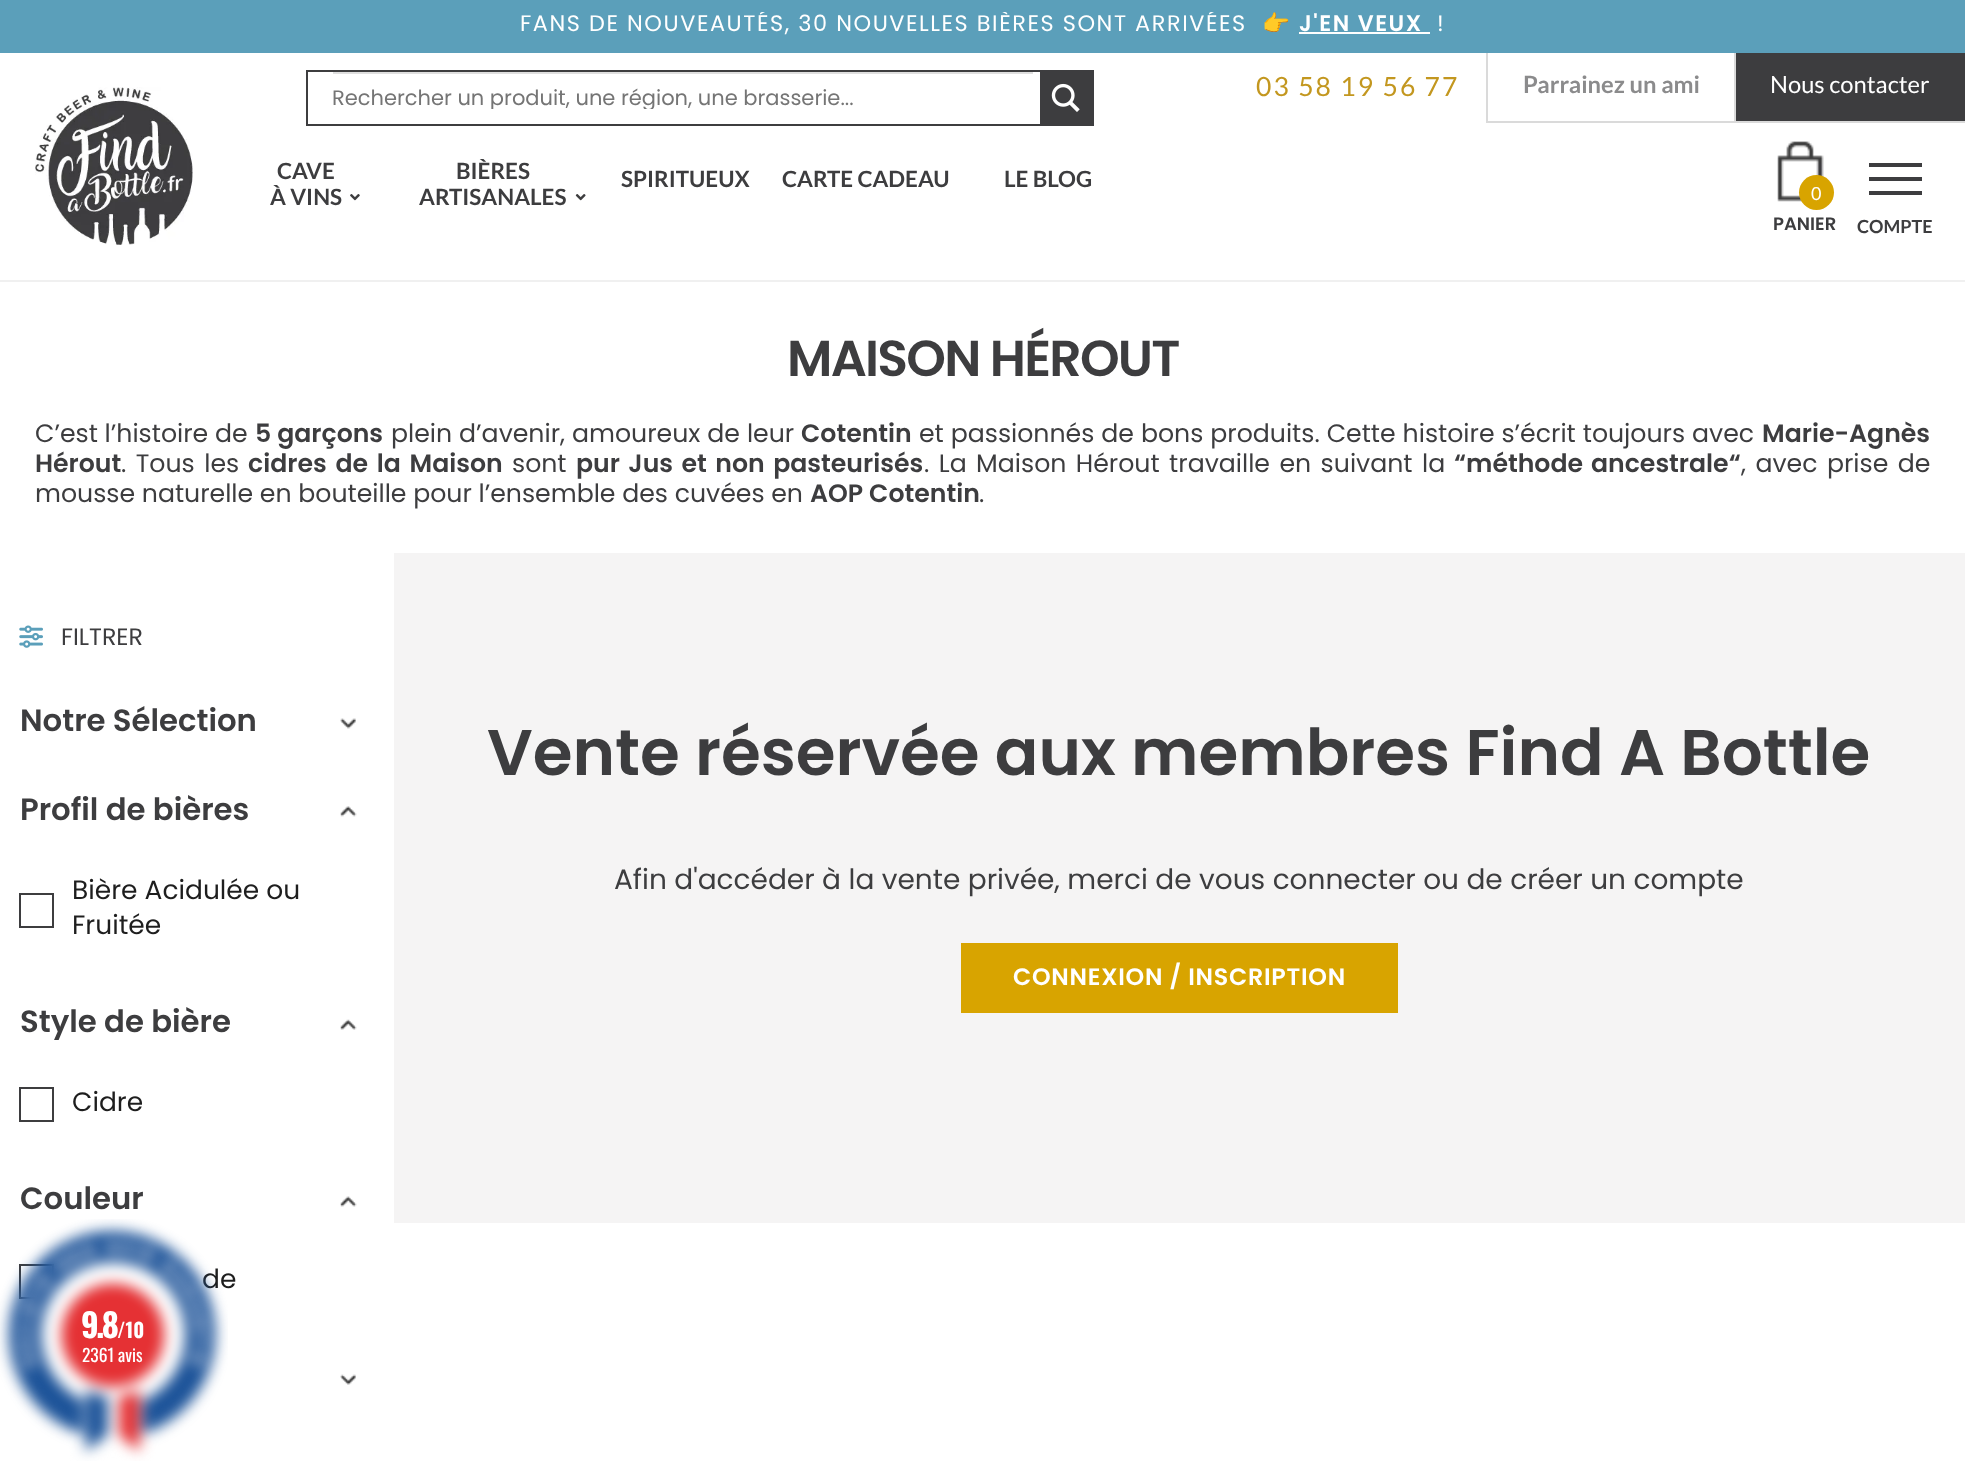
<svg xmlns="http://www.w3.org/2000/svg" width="1965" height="1461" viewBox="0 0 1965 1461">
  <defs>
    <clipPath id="clip1"><rect x="0" y="12" width="1965" height="27"/></clipPath>
    <clipPath id="clip2"><rect x="333" y="88" width="700" height="21"/></clipPath>
  </defs>
  <rect width="100%" height="100%" fill="rgb(255,255,255)"/>
  <rect x="0" y="280" width="1965" height="2" fill="rgb(240,240,240)"/>
  <rect x="0" y="0" width="1965" height="53" fill="rgb(91,159,186)"/>
  <g clip-path="url(#clip1)">
    <text x="520" y="31" font-family="Poppins" font-size="22.4" letter-spacing="1.57" fill="rgb(255,255,255)">FANS DE NOUVEAUTÉS, 30 NOUVELLES BIÈRES SONT ARRIVÉES</text>
    <text x="1262" y="31" font-family="Noto Color Emoji" font-size="22.4" letter-spacing="1.57" fill="rgb(255,255,255)">👉</text>
  </g>
  <text x="1299" y="31" font-family="Poppins" font-size="22.4" font-weight="600" letter-spacing="1.57" fill="rgb(255,255,255)">J'EN VEUX</text>
  <rect x="1299" y="32" width="131" height="2" fill="rgb(255,255,255)"/>
  <text x="1437" y="31" font-family="Poppins" font-size="22.4" letter-spacing="1.57" fill="rgb(255,255,255)">!</text>
  <rect x="307" y="71" width="786" height="54" fill="none" stroke="rgb(61,61,63)" stroke-width="2"/>
  <rect x="333" y="72" width="700" height="2" fill="rgb(223,223,223)"/>
  <g clip-path="url(#clip2)">
    <text x="332" y="105" font-family="Poppins" font-size="21" fill="rgb(117,117,117)">Rechercher un produit, une région, une brasserie...</text>
  </g>
  <rect x="1040" y="72" width="52" height="52" fill="rgb(61,61,63)"/>
  <image x="1051" y="83" width="29" height="29" href="pic1.png"/>
  <text x="1256" y="96" font-family="Lato" font-size="26.5" letter-spacing="2.1" fill="rgb(195,151,31)">03 58 19 56 77</text>
  <rect x="1486" y="121" width="479" height="2" fill="rgb(218,218,218)"/>
  <rect x="1486" y="53" width="2" height="70" fill="rgb(218,218,218)"/>
  <text x="1523" y="93" font-family="Lato" font-size="23.75" font-weight="bold" fill="rgb(139,139,140)">Parrainez un ami</text>
  <rect x="1736" y="53" width="229" height="68" fill="rgb(61,61,63)"/>
  <rect x="1734" y="53" width="2" height="70" fill="rgb(218,218,218)"/>
  <text x="1770" y="93" font-family="Lato" font-size="23.75" fill="rgb(255,255,255)">Nous contacter</text>
  <image x="35" y="87" width="158" height="158" href="pic2.png"/>
  <g font-family="Lato" font-size="22.4" font-weight="bold" fill="rgb(61,61,63)">
    <text x="277" y="179">CAVE</text>
    <text x="270" y="205">À VINS</text>
  </g>
  <image x="350" y="194" width="10" height="7" href="pic3.png"/>
  <g font-family="Lato" font-size="22.4" font-weight="bold" fill="rgb(61,61,63)">
    <text x="456" y="179">BIÈRES</text>
    <text x="419" y="205">ARTISANALES</text>
  </g>
  <image x="575" y="194" width="11" height="7" href="pic4.png"/>
  <g font-family="Lato" font-size="22.4" font-weight="bold" fill="rgb(61,61,63)">
    <text x="621" y="187">SPIRITUEUX</text>
    <text x="782" y="187">CARTE CADEAU</text>
    <text x="1004" y="187">LE BLOG</text>
  </g>
  <image x="1777" y="141" width="47" height="61" href="pic5.png"/>
  <circle cx="1816.5" cy="192.5" r="17.5" fill="rgb(216,164,0)"/>
  <text x="1811" y="200" font-family="Lato" font-size="18" fill="rgb(255,255,255)">0</text>
  <text x="1773" y="230" font-family="Poppins" font-size="18" font-weight="600" fill="rgb(61,61,63)">PANIER</text>
  <rect x="1869" y="177" width="53" height="4" fill="rgb(61,61,63)"/>
  <rect x="1869" y="163" width="53" height="4" fill="rgb(61,61,63)"/>
  <rect x="1869" y="191" width="53" height="4" fill="rgb(61,61,63)"/>
  <text x="1857" y="233" font-family="Lato" font-size="18" font-weight="bold" fill="rgb(61,61,63)">COMPTE</text>
  <text x="787" y="376" font-family="Poppins" font-size="50.5" font-weight="600" letter-spacing="-1.75" fill="rgb(61,61,63)">MAISON HÉROUT</text>
  <text x="35" y="442" font-family="Poppins" font-size="25.2" fill="rgb(61,61,63)">C’est l’histoire de</text>
  <text x="255" y="442" font-family="Poppins" font-size="25.2" font-weight="600" fill="rgb(61,61,63)">5 garçons</text>
  <text x="391" y="442" word-spacing="0.25" font-family="Poppins" font-size="25.2" fill="rgb(61,61,63)">plein d’avenir, amoureux de leur</text>
  <text x="801" y="442" font-family="Poppins" font-size="25.2" font-weight="600" fill="rgb(61,61,63)">Cotentin</text>
  <text x="919" y="442" word-spacing="0.25" font-family="Poppins" font-size="25.2" fill="rgb(61,61,63)">et passionnés de bons produits. Cette histoire s’écrit toujours avec</text>
  <g font-family="Poppins" font-size="25.2" font-weight="600" fill="rgb(61,61,63)">
    <text x="1762" y="442">Marie-Agnès</text>
    <text x="35" y="472">Hérout</text>
  </g>
  <text x="121" y="472" word-spacing="2.75" font-family="Poppins" font-size="25.2" fill="rgb(61,61,63)">. Tous les</text>
  <text x="248" y="472" word-spacing="2.75" font-family="Poppins" font-size="25.2" font-weight="600" fill="rgb(61,61,63)">cidres de la Maison</text>
  <text x="512" y="472" font-family="Poppins" font-size="25.2" fill="rgb(61,61,63)">sont</text>
  <text x="576" y="472" word-spacing="2.5" font-family="Poppins" font-size="25.2" font-weight="600" fill="rgb(61,61,63)">pur Jus et non pasteurisés</text>
  <text x="924" y="472" word-spacing="2.75" font-family="Poppins" font-size="25.2" fill="rgb(61,61,63)">. La Maison Hérout travaille en suivant la</text>
  <text x="1454" y="472" word-spacing="2" font-family="Poppins" font-size="25.2" font-weight="600" fill="rgb(61,61,63)">“méthode ancestrale“</text>
  <g font-family="Poppins" font-size="25.2" fill="rgb(61,61,63)">
    <text x="1741" y="472" word-spacing="2.75">, avec prise de</text>
    <text x="35" y="502">mousse naturelle en bouteille pour l’ensemble des cuvées en</text>
  </g>
  <text x="810" y="502" font-family="Poppins" font-size="25.2" font-weight="600" fill="rgb(61,61,63)">AOP Cotentin</text>
  <text x="979" y="502" font-family="Poppins" font-size="25.2" fill="rgb(61,61,63)">.</text>
  <image x="19" y="625" width="24" height="23" href="pic6.png"/>
  <text x="61" y="645" font-family="Poppins" font-size="23.75" fill="rgb(61,61,63)">FILTRER</text>
  <text x="20" y="731" font-family="Poppins" font-size="30.75" font-weight="600" fill="rgb(61,61,63)">Notre Sélection</text>
  <image x="340" y="718" width="16" height="11" href="pic7.png"/>
  <text x="20" y="820" font-family="Poppins" font-size="30.75" font-weight="600" fill="rgb(61,61,63)">Profil de bières</text>
  <image x="340" y="806" width="17" height="11" href="pic8.png"/>
  <text x="72" y="899" font-family="Poppins" font-size="26.5" fill="rgb(30,30,30)">Bière Acidulée ou</text>
  <rect x="20" y="894" width="33" height="33" fill="none" stroke="rgb(61,61,63)" stroke-width="2"/>
  <text x="72" y="934" font-family="Poppins" font-size="26.5" fill="rgb(30,30,30)">Fruitée</text>
  <text x="20" y="1032" font-family="Poppins" font-size="30.75" font-weight="600" fill="rgb(61,61,63)">Style de bière</text>
  <image x="340" y="1019" width="17" height="11" href="pic9.png"/>
  <rect x="20" y="1088" width="33" height="33" fill="none" stroke="rgb(61,61,63)" stroke-width="2"/>
  <text x="72" y="1111" font-family="Poppins" font-size="26.5" fill="rgb(30,30,30)">Cidre</text>
  <text x="20" y="1209" font-family="Poppins" font-size="30.75" font-weight="600" fill="rgb(61,61,63)">Couleur</text>
  <image x="340" y="1196" width="17" height="11" href="pic10.png"/>
  <rect x="20" y="1265" width="33" height="33" fill="none" stroke="rgb(61,61,63)" stroke-width="2"/>
  <text x="202" y="1288" font-family="Poppins" font-size="26.5" fill="rgb(30,30,30)">de</text>
  <image x="340" y="1374" width="16" height="11" href="pic11.png"/>
  <rect x="394" y="553" width="1571" height="670" fill="rgb(245,244,244)"/>
  <text x="487" y="775" font-family="Poppins" font-size="64.4" font-weight="600" fill="rgb(61,61,63)">Vente réservée aux membres Find A Bottle</text>
  <text x="614" y="889" font-family="Poppins" font-size="28" fill="rgb(61,61,63)">Afin d'accéder à la vente privée, merci de vous connecter ou de créer un compte</text>
  <rect x="961" y="943" width="437" height="70" fill="rgb(216,164,0)"/>
  <text x="1013" y="985" font-family="Poppins" font-size="23.75" font-weight="600" letter-spacing="0.75" fill="rgb(255,255,255)">CONNEXION / INSCRIPTION</text>
  <image x="0" y="1219" width="228" height="242" href="pic12.png"/>
  <text x="81" y="1338" font-family="Oswald" font-size="33" font-weight="bold" letter-spacing="-2.5" fill="rgb(255,255,255)">9.8</text>
  <text x="117" y="1338" font-family="Oswald" font-size="20" font-weight="bold" fill="rgb(255,255,255)">/10</text>
  <text x="82" y="1362" font-family="Oswald" font-size="17.5" fill="rgb(255,255,255)">2361 avis</text>
</svg>
